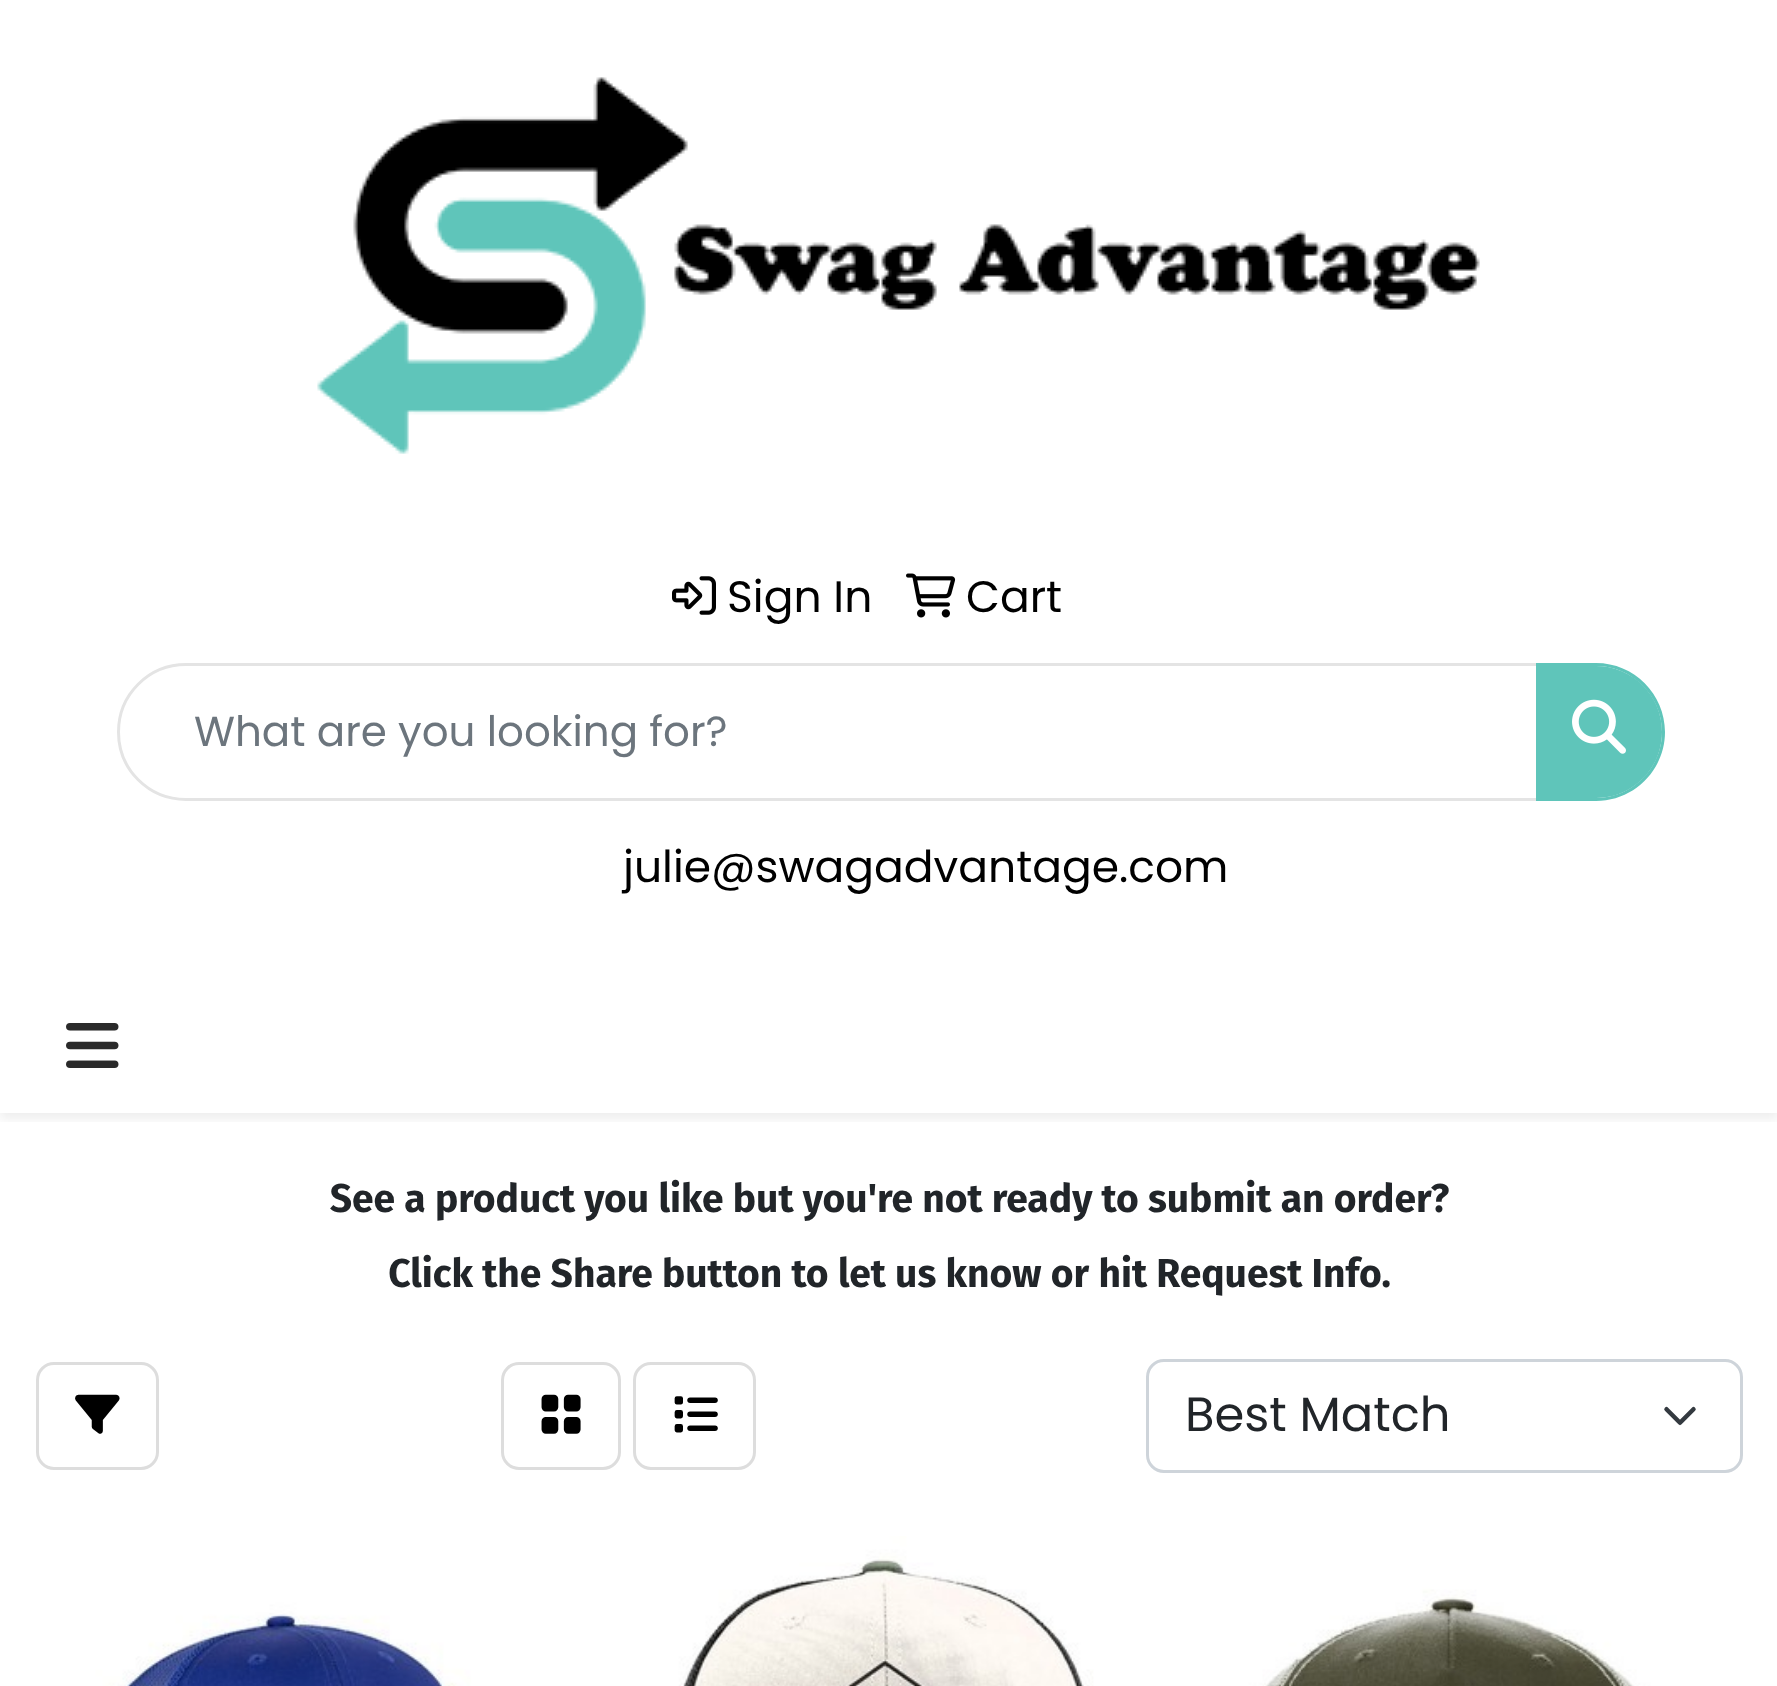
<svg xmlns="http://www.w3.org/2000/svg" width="1777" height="1686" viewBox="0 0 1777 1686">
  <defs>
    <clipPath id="clip1"><rect x="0" y="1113" width="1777" height="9"/></clipPath>
  </defs>
  <rect width="100%" height="100%" fill="rgb(255,255,255)"/>
  <image x="317" y="77" width="1163" height="377" href="pic1.png"/>
  <image x="672" y="576" width="44" height="39" href="pic2.png"/>
  <text x="727" y="612" font-family="Poppins" font-size="44" fill="rgb(0,0,0)">Sign In</text>
  <image x="906" y="573" width="50" height="45" href="pic3.png"/>
  <text x="966" y="612" font-family="Poppins" font-size="44" fill="rgb(0,0,0)">Cart</text>
  <path d="M186 664.5H1537.5V799.5H186C148.5 799.5 118.5 769.5 118.5 732C118.5 694.5 148.5 664.5 186 664.5Z" fill="none" stroke="rgb(228,228,228)" stroke-width="3"/>
  <text x="194" y="746" font-family="Poppins" font-size="42" fill="rgb(108,117,125)">What are you looking for?</text>
  <path d="M1536 666H1596C1632.5 666 1662 695.5 1662 732C1662 768.5 1632.5 798 1596 798H1536Z" fill="rgb(95,197,186)"/>
  <path d="M1536 663H1596C1634 663 1665 694 1665 732C1665 770 1634 801 1596 801H1536ZM1536 666H1596C1632 666 1662 696 1662 732C1662 768 1632 798 1596 798H1536Z" fill="rgb(95,197,186)" fill-rule="evenodd"/>
  <image x="1572" y="699" width="54" height="55" href="pic4.png"/>
  <text x="623" y="882" font-family="Poppins" font-size="44" fill="rgb(0,0,0)">julie@swagadvantage.com</text>
  <g clip-path="url(#clip1)">
    <rect x="0" y="987" width="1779" height="132" fill="rgba(0,0,0,0.07)" filter="blur(6px)"/>
  </g>
  <image x="66" y="1023" width="53" height="45" href="pic5.png"/>
  <image x="36" y="1179" width="1707" height="507" href="pic6.png"/>
</svg>
